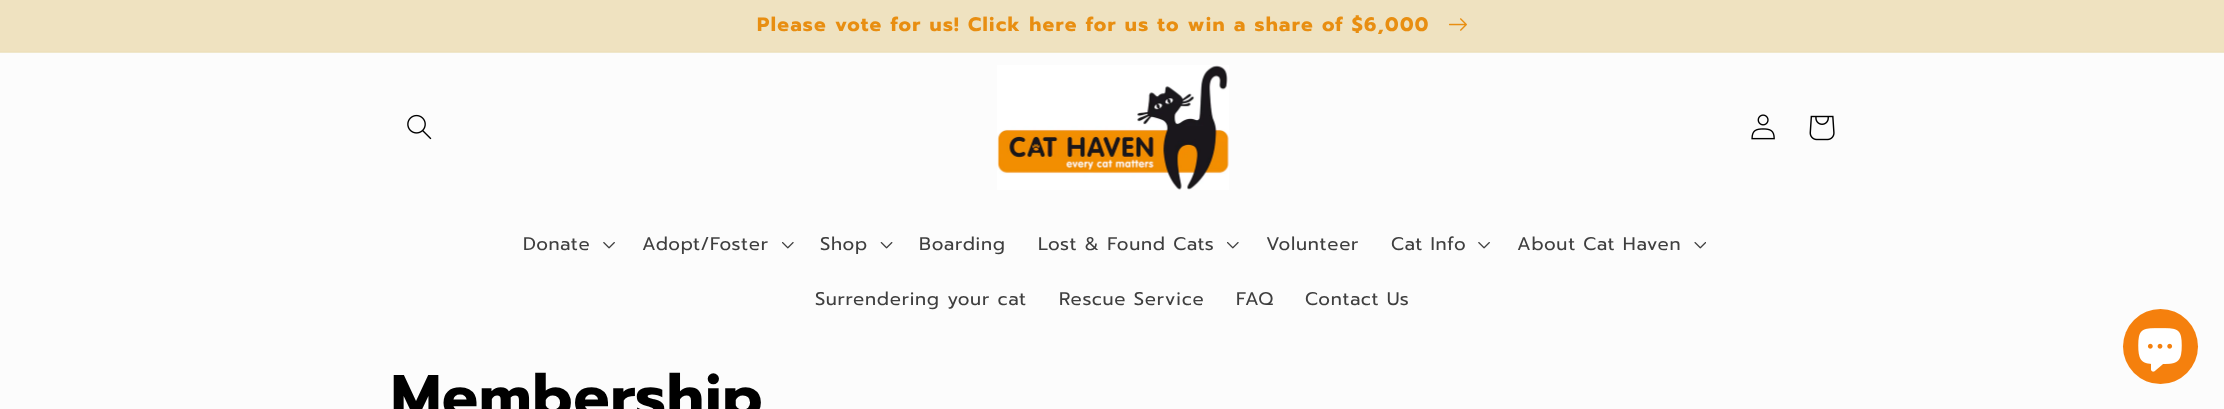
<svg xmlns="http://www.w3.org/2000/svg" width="2224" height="409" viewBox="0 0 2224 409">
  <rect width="100%" height="100%" fill="rgb(252,252,252)"/>
  <rect x="0" y="52" width="2224" height="1" fill="rgb(239,231,203)"/>
  <rect x="0" y="51" width="2224" height="1" fill="rgb(238,224,188)"/>
  <rect x="0" y="0" width="2224" height="51" fill="rgb(239,226,192)"/>
  <text x="757" y="31" font-family="Prompt" font-size="19.5" font-weight="bold" letter-spacing="1.3" fill="rgb(232,142,17)">Please vote for us! Click here for us to win a share of $6,000</text>
  <image x="1449" y="18" width="18" height="13" href="pic1.png"/>
  <image x="407" y="114" width="25" height="26" href="pic2.png"/>
  <image x="997" y="65" width="232" height="125" href="pic3.png"/>
  <image x="1751" y="114" width="24" height="26" href="pic4.png"/>
  <image x="1809" y="115" width="26" height="26" href="pic5.png"/>
  <text x="523" y="250" font-family="Prompt" font-size="18.4" letter-spacing="0.75" fill="rgb(63,63,63)">Donate</text>
  <image x="603" y="242" width="12" height="7" href="pic6.png"/>
  <text x="642" y="250" font-family="Prompt" font-size="18.4" letter-spacing="0.75" fill="rgb(63,63,63)">Adopt/Foster</text>
  <image x="782" y="242" width="12" height="7" href="pic7.png"/>
  <text x="820" y="250" font-family="Prompt" font-size="18.4" letter-spacing="0.75" fill="rgb(63,63,63)">Shop</text>
  <image x="880" y="242" width="13" height="7" href="pic8.png"/>
  <g font-family="Prompt" font-size="18.4" letter-spacing="0.75" fill="rgb(63,63,63)">
    <text x="919" y="250">Boarding</text>
    <text x="1038" y="250">Lost &amp; Found Cats</text>
  </g>
  <image x="1227" y="242" width="12" height="7" href="pic7.png"/>
  <g font-family="Prompt" font-size="18.4" letter-spacing="0.75" fill="rgb(63,63,63)">
    <text x="1266" y="250">Volunteer</text>
    <text x="1391" y="250">Cat Info</text>
  </g>
  <image x="1478" y="242" width="12" height="7" href="pic6.png"/>
  <text x="1517" y="250" font-family="Prompt" font-size="18.4" letter-spacing="0.75" fill="rgb(63,63,63)">About Cat Haven</text>
  <image x="1694" y="242" width="12" height="7" href="pic9.png"/>
  <g font-family="Prompt" font-size="18.4" letter-spacing="0.75" fill="rgb(63,63,63)">
    <text x="815" y="305">Surrendering your cat</text>
    <text x="1059" y="305">Rescue Service</text>
    <text x="1236" y="305">FAQ</text>
    <text x="1305" y="305">Contact Us</text>
  </g>
  <circle cx="2160.5" cy="346.5" r="37.5" fill="rgb(245,128,13)"/>
  <image x="2138" y="328" width="44" height="44" href="pic10.png"/>
  <text x="391" y="417" font-family="Prompt" font-size="60" font-weight="bold" letter-spacing="1" fill="rgb(0,0,0)">Membership</text>
</svg>
